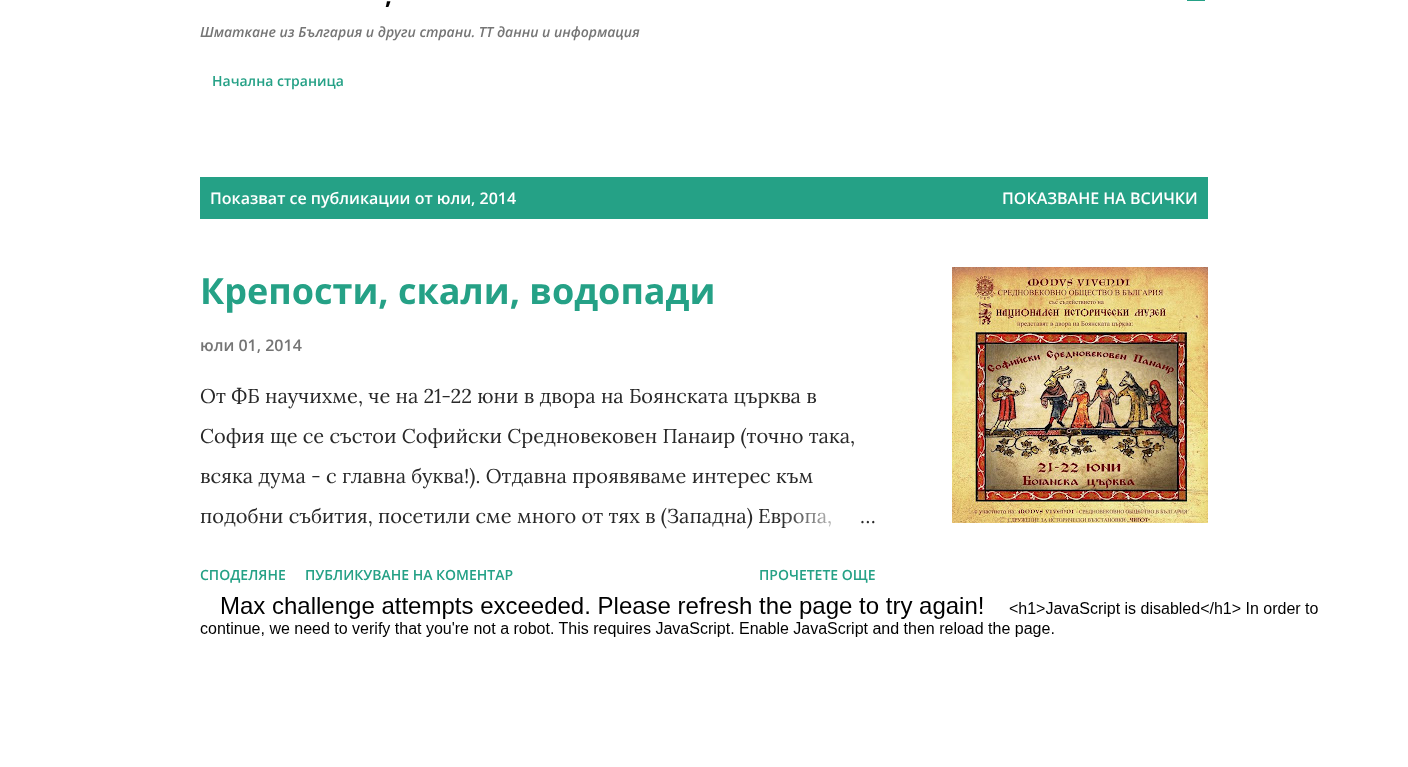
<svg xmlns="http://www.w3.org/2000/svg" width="1408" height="767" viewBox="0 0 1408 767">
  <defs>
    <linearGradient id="g1" gradientUnits="userSpaceOnUse" x1="876" y1="516" x2="780" y2="516"><stop offset="0" stop-color="rgb(255,255,255)"/><stop offset="0.2" stop-color="rgb(255,255,255)"/><stop offset="1" stop-color="rgb(255,255,255)" stop-opacity="0"/></linearGradient>
  </defs>
  <rect width="100%" height="100%" fill="rgb(255,255,255)"/>
  <rect x="1187" y="0" width="18" height="1" fill="rgb(37,161,134)"/>
  <text x="385" y="4" font-family="Open Sans" font-size="24" font-weight="bold" fill="rgb(0,0,0)">,</text>
  <text x="200" y="37" font-family="Open Sans" font-size="14" font-weight="600" font-style="italic" fill="rgb(117,117,117)">Шматкане из България и други страни. ТТ данни и информация</text>
  <text x="212" y="86" font-family="Open Sans" font-size="14" font-weight="600" fill="rgb(37,161,134)">Начална страница</text>
  <rect x="200" y="177" width="1008" height="42" fill="rgb(37,161,134)"/>
  <g font-family="Open Sans" font-size="16" font-weight="600" fill="rgb(255,255,255)">
    <text x="210" y="204">Показват се публикации от юли, 2014</text>
    <text x="1002" y="204">ПОКАЗВАНЕ НА ВСИЧКИ</text>
  </g>
  <text x="200" y="304" font-family="Open Sans" font-size="36" font-weight="bold" fill="rgb(37,161,134)">Крепости, скали, водопади</text>
  <text x="200" y="351" font-family="Open Sans" font-size="16" font-weight="600" fill="rgb(117,117,117)">юли 01, 2014</text>
  <g font-family="Lora" font-size="20" fill="rgb(41,41,41)">
    <text x="200" y="403">От ФБ научихме, че на 21-22 юни в двора на Боянската църква в</text>
    <text x="200" y="443">София ще се състои Софийски Средновековен Панаир (точно така,</text>
    <text x="200" y="483">всяка дума - с главна буква!). Отдавна проявяваме интерес към</text>
    <text x="200" y="523">подобни събития, посетили сме много от тях в (Западна) Европа,</text>
  </g>
  <rect x="782" y="512" width="49" height="16" fill="url(#g1)"/>
  <text x="860" y="523" font-family="Lora" font-size="20" fill="rgb(41,41,41)">…</text>
  <g font-family="Open Sans" font-size="14" font-weight="600" fill="rgb(37,161,134)">
    <text x="200" y="580">СПОДЕЛЯНЕ</text>
    <text x="305" y="580">ПУБЛИКУВАНЕ НА КОМЕНТАР</text>
    <text x="759" y="580">ПРОЧЕТЕТЕ ОЩЕ</text>
  </g>
  <image x="952" y="267" width="256" height="256" href="pic1.png"/>
  <image x="200" y="597" width="1118" height="40" href="pic2.png"/>
</svg>
